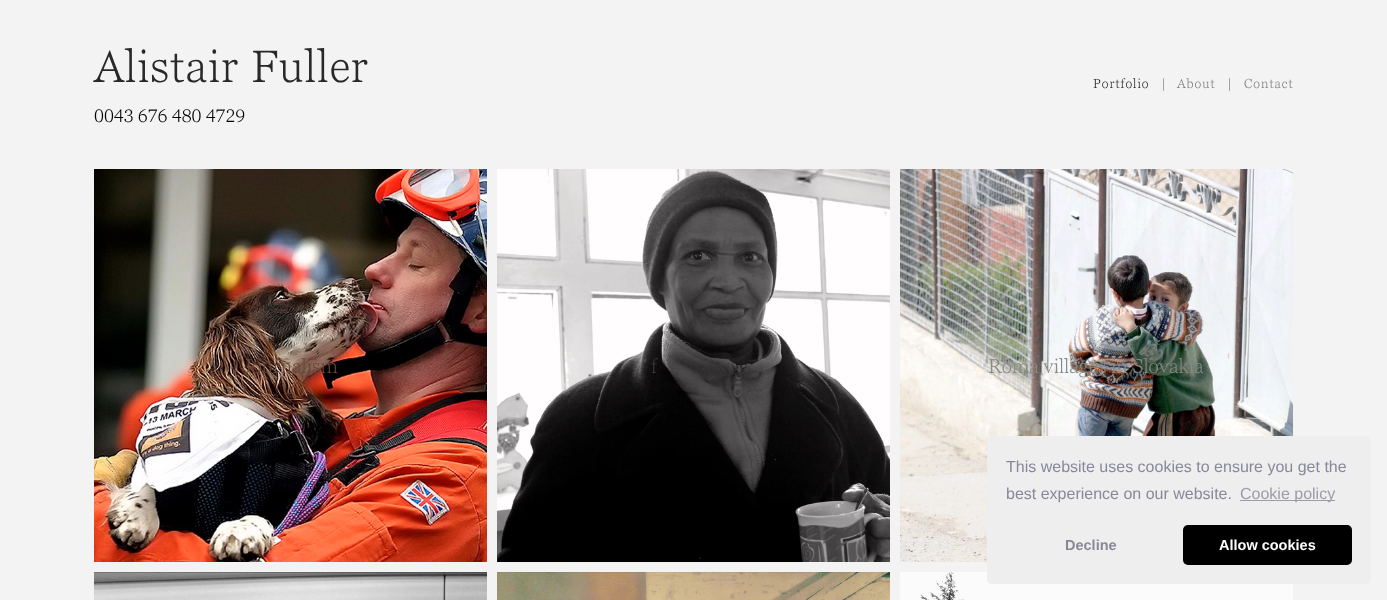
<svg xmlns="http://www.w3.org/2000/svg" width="1387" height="600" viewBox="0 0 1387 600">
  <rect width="100%" height="100%" fill="rgb(243,243,243)"/>
  <text x="94" y="82" font-family="Georgia" font-size="45" font-weight="300" letter-spacing="1" fill="rgb(40,40,40)">Alistair Fuller</text>
  <text x="94" y="122" font-family="Georgia" font-size="18" font-weight="300" fill="rgb(0,0,0)">0043 676 480 4729</text>
  <text x="1093" y="88" font-family="Georgia" font-size="13" font-weight="300" letter-spacing="1" fill="rgb(40,40,40)">Portfolio</text>
  <g font-family="Georgia" font-size="13" font-weight="300" letter-spacing="1" fill="rgb(124,124,124)">
    <text x="1161" y="88">|</text>
    <text x="1177" y="88">About</text>
    <text x="1227" y="88">|</text>
    <text x="1244" y="88">Contact</text>
  </g>
  <image x="94" y="169" width="393" height="393" href="pic1.png"/>
  <text x="242" y="373" font-family="Georgia" font-size="20" font-weight="300" fill="rgb(103,72,60)">Journalism</text>
  <image x="497" y="169" width="393" height="393" href="pic2.png"/>
  <text x="651" y="373" font-family="Georgia" font-size="20" font-weight="300" fill="rgb(58,56,57)">f</text>
  <image x="900" y="169" width="393" height="393" href="pic3.png"/>
  <text x="988" y="373" font-family="Georgia" font-size="20" font-weight="300" fill="rgb(136,138,130)">Roma villages in Slovakia</text>
  <image x="94" y="572" width="393" height="28" href="pic4.png"/>
  <image x="497" y="572" width="393" height="28" href="pic5.png"/>
  <image x="900" y="572" width="393" height="28" href="pic6.png"/>
  <rect x="987" y="436" width="384" height="148" rx="5" fill="rgb(238,238,238)"/>
  <g font-family="Liberation Sans" font-size="16" fill="rgb(136,136,153)">
    <text>
      <tspan x="1006" y="472">This website uses cookies to ensure you get the</tspan>
      <tspan x="1006" y="499">best experience on our website.</tspan>
    </text>
  </g>
  <rect x="1240" y="500" width="95" height="1" fill="rgb(156,156,170)"/>
  <text x="1240" y="499" font-family="Liberation Sans" font-size="16" fill="rgb(156,156,170)">Сookie policy</text>
  <text x="1065" y="550" font-family="Liberation Sans" font-size="14.5" font-weight="bold" fill="rgb(136,136,153)">Decline</text>
  <rect x="1183" y="525" width="169" height="40" rx="5" fill="rgb(0,0,0)"/>
  <text x="1219" y="550" font-family="Liberation Sans" font-size="14.5" font-weight="bold" fill="rgb(255,255,255)">Allow cookies</text>
</svg>
